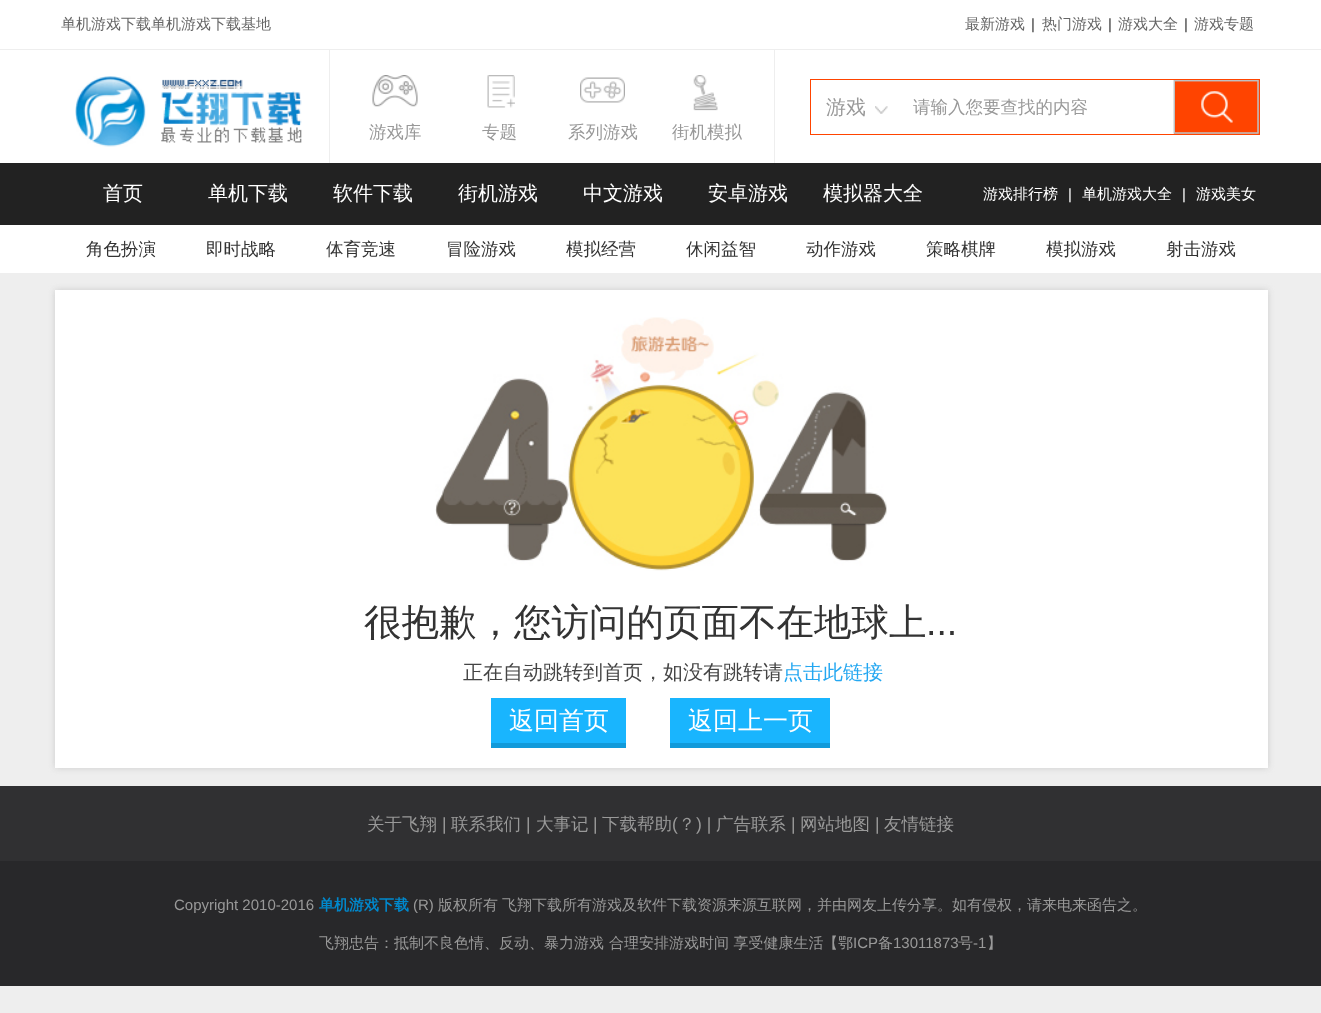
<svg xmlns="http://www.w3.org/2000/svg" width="1321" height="1013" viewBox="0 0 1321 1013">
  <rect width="100%" height="100%" fill="rgb(238,238,238)"/>
  <rect x="0" y="0" width="1321" height="49" fill="rgb(255,255,255)"/>
  <g font-family="WenQuanYi Zen Hei" font-size="15" font-weight="500" fill="rgb(102,102,102)">
    <text x="61" y="29">单机游戏下载单机游戏下载基地</text>
    <text x="965" y="29">最新游戏</text>
  </g>
  <text x="1031" y="29" font-family="Liberation Sans" font-size="15" fill="rgb(51,51,51)">|</text>
  <text x="1042" y="29" font-family="WenQuanYi Zen Hei" font-size="15" font-weight="500" fill="rgb(102,102,102)">热门游戏</text>
  <text x="1108" y="29" font-family="Liberation Sans" font-size="15" fill="rgb(51,51,51)">|</text>
  <text x="1118" y="29" font-family="WenQuanYi Zen Hei" font-size="15" font-weight="500" fill="rgb(102,102,102)">游戏大全</text>
  <text x="1184" y="29" font-family="Liberation Sans" font-size="15" fill="rgb(51,51,51)">|</text>
  <text x="1194" y="29" font-family="WenQuanYi Zen Hei" font-size="15" font-weight="500" fill="rgb(102,102,102)">游戏专题</text>
  <rect x="0" y="50" width="1321" height="113" fill="rgb(255,255,255)"/>
  <rect x="329" y="50" width="1" height="113" fill="rgb(238,238,238)"/>
  <image x="75" y="76" width="227" height="71" href="pic1.png"/>
  <rect x="810.5" y="79.5" width="449" height="55" fill="none" stroke="rgb(255,68,0)"/>
  <image x="875" y="106" width="13" height="8" href="pic2.png"/>
  <text x="826" y="114" font-family="WenQuanYi Zen Hei" font-size="20" font-weight="500" fill="rgb(153,153,153)">游戏</text>
  <text x="913" y="113" font-family="WenQuanYi Zen Hei" font-size="17.5" font-weight="500" fill="rgb(153,153,153)">请输入您要查找的内容</text>
  <rect x="1174" y="80" width="85" height="54" fill="rgb(255,68,0)"/>
  <image x="1173" y="80" width="86" height="54" href="pic3.png"/>
  <image x="1173" y="80" width="86" height="54" href="pic4.png"/>
  <rect x="774" y="50" width="1" height="113" fill="rgb(238,238,238)"/>
  <image x="372" y="75" width="46" height="32" href="pic5.png"/>
  <text x="369" y="138" font-family="WenQuanYi Zen Hei" font-size="17.5" font-weight="500" fill="rgb(153,153,153)">游戏库</text>
  <image x="487" y="75" width="28" height="33" href="pic6.png"/>
  <text x="482" y="138" font-family="WenQuanYi Zen Hei" font-size="17.5" font-weight="500" fill="rgb(153,153,153)">专题</text>
  <image x="580" y="77" width="45" height="26" href="pic7.png"/>
  <text x="568" y="138" font-family="WenQuanYi Zen Hei" font-size="17.5" font-weight="500" fill="rgb(153,153,153)">系列游戏</text>
  <image x="693" y="75" width="25" height="36" href="pic8.png"/>
  <text x="672" y="138" font-family="WenQuanYi Zen Hei" font-size="17.5" font-weight="500" fill="rgb(153,153,153)">街机模拟</text>
  <rect x="0" y="163" width="1321" height="62" fill="rgb(34,34,34)"/>
  <g font-family="WenQuanYi Zen Hei" font-size="20" font-weight="500" fill="rgb(255,255,255)">
    <text x="103" y="200">首页</text>
    <text x="208" y="200">单机下载</text>
    <text x="333" y="200">软件下载</text>
    <text x="458" y="200">街机游戏</text>
    <text x="583" y="200">中文游戏</text>
    <text x="708" y="200">安卓游戏</text>
    <text x="823" y="200">模拟器大全</text>
  </g>
  <text x="983" y="199" font-family="WenQuanYi Zen Hei" font-size="15" font-weight="500" fill="rgb(255,255,255)">游戏排行榜</text>
  <text x="1068" y="199" font-family="Liberation Sans" font-size="15" fill="rgb(255,255,255)">|</text>
  <text x="1082" y="199" font-family="WenQuanYi Zen Hei" font-size="15" font-weight="500" fill="rgb(255,255,255)">单机游戏大全</text>
  <text x="1182" y="199" font-family="Liberation Sans" font-size="15" fill="rgb(255,255,255)">|</text>
  <text x="1196" y="199" font-family="WenQuanYi Zen Hei" font-size="15" font-weight="500" fill="rgb(255,255,255)">游戏美女</text>
  <rect x="0" y="225" width="1321" height="48" fill="rgb(255,255,255)"/>
  <g font-family="WenQuanYi Zen Hei" font-size="17.5" font-weight="500" fill="rgb(51,51,51)">
    <text x="86" y="255">角色扮演</text>
    <text x="206" y="255">即时战略</text>
    <text x="326" y="255">体育竞速</text>
    <text x="446" y="255">冒险游戏</text>
    <text x="566" y="255">模拟经营</text>
    <text x="686" y="255">休闲益智</text>
    <text x="806" y="255">动作游戏</text>
    <text x="926" y="255">策略棋牌</text>
    <text x="1046" y="255">模拟游戏</text>
    <text x="1166" y="255">射击游戏</text>
  </g>
  <rect x="55" y="290" width="1213" height="478" fill="rgb(204,204,204)" filter="blur(3px)"/>
  <rect x="55" y="290" width="1213" height="478" fill="rgb(255,255,255)"/>
  <image x="435" y="317" width="452" height="254" href="pic9.png"/>
  <text x="364" y="635" font-family="WenQuanYi Zen Hei" font-size="37.5" font-weight="500" fill="rgb(51,51,51)">很抱歉，您访问的页面不在地球上</text>
  <text x="926" y="635" font-family="Liberation Sans" font-size="37.5" fill="rgb(51,51,51)">...</text>
  <text x="463" y="679" font-family="WenQuanYi Zen Hei" font-size="20" font-weight="500" fill="rgb(68,68,68)">正在自动跳转到首页，如没有跳转请</text>
  <text x="783" y="679" font-family="WenQuanYi Zen Hei" font-size="20" font-weight="500" fill="rgb(35,167,241)">点击此链接</text>
  <rect x="491" y="698" width="135" height="45" fill="rgb(25,181,254)"/>
  <rect x="491" y="743" width="135" height="5" fill="rgb(17,154,218)"/>
  <text x="509" y="729" font-family="WenQuanYi Zen Hei" font-size="25" font-weight="500" fill="rgb(255,255,255)">返回首页</text>
  <rect x="670" y="698" width="160" height="45" fill="rgb(25,181,254)"/>
  <rect x="670" y="743" width="160" height="5" fill="rgb(17,154,218)"/>
  <text x="688" y="729" font-family="WenQuanYi Zen Hei" font-size="25" font-weight="500" fill="rgb(255,255,255)">返回上一页</text>
  <rect x="0" y="786" width="1321" height="75" fill="rgb(48,48,50)"/>
  <text x="367" y="830" font-family="WenQuanYi Zen Hei" font-size="17.5" font-weight="500" fill="rgb(153,153,153)">关于飞翔</text>
  <text x="442" y="830" font-family="Liberation Sans" font-size="17.5" fill="rgb(153,153,153)">|</text>
  <text x="451" y="830" font-family="WenQuanYi Zen Hei" font-size="17.5" font-weight="500" fill="rgb(153,153,153)">联系我们</text>
  <text x="526" y="830" font-family="Liberation Sans" font-size="17.5" fill="rgb(153,153,153)">|</text>
  <text x="536" y="830" font-family="WenQuanYi Zen Hei" font-size="17.5" font-weight="500" fill="rgb(153,153,153)">大事记</text>
  <text x="593" y="830" font-family="Liberation Sans" font-size="17.5" fill="rgb(153,153,153)">|</text>
  <text x="602" y="830" font-family="WenQuanYi Zen Hei" font-size="17.5" font-weight="500" fill="rgb(153,153,153)">下载帮助</text>
  <text x="672" y="830" font-family="Liberation Sans" font-size="17.5" fill="rgb(153,153,153)">(</text>
  <text x="678" y="830" font-family="WenQuanYi Zen Hei" font-size="17.5" font-weight="500" fill="rgb(153,153,153)">？</text>
  <text x="696" y="830" font-family="Liberation Sans" font-size="17.5" fill="rgb(153,153,153)">) |</text>
  <text x="716" y="830" font-family="WenQuanYi Zen Hei" font-size="17.5" font-weight="500" fill="rgb(153,153,153)">广告联系</text>
  <text x="791" y="830" font-family="Liberation Sans" font-size="17.5" fill="rgb(153,153,153)">|</text>
  <text x="800" y="830" font-family="WenQuanYi Zen Hei" font-size="17.5" font-weight="500" fill="rgb(153,153,153)">网站地图</text>
  <text x="875" y="830" font-family="Liberation Sans" font-size="17.5" fill="rgb(153,153,153)">|</text>
  <text x="884" y="830" font-family="WenQuanYi Zen Hei" font-size="17.5" font-weight="500" fill="rgb(153,153,153)">友情链接</text>
  <rect x="0" y="861" width="1321" height="125" fill="rgb(40,40,42)"/>
  <text x="174" y="910" font-family="Liberation Sans" font-size="15" fill="rgb(153,153,153)">Copyright 2010-2016</text>
  <text x="319" y="910" font-family="WenQuanYi Zen Hei" font-size="15" font-weight="bold" fill="rgb(0,136,204)">单机游戏下载</text>
  <text x="413" y="910" font-family="Liberation Sans" font-size="15" fill="rgb(153,153,153)">(R)</text>
  <g font-family="WenQuanYi Zen Hei" font-size="15" font-weight="500" fill="rgb(153,153,153)">
    <text x="438" y="910">版权所有</text>
    <text x="502" y="910">飞翔下载所有游戏及软件下载资源来源互联网，并由网友上传分享。如有侵权，请来电来函告之。</text>
    <text x="319" y="948">飞翔忠告：抵制不良色情、反动、暴力游戏</text>
    <text x="609" y="948">合理安排游戏时间 享受健康生活</text>
    <text x="823" y="948">【鄂</text>
  </g>
  <text x="853" y="948" font-family="Liberation Sans" font-size="15" fill="rgb(153,153,153)">ICP</text>
  <text x="878" y="948" font-family="WenQuanYi Zen Hei" font-size="15" font-weight="500" fill="rgb(153,153,153)">备</text>
  <text x="893" y="948" font-family="Liberation Sans" font-size="15" fill="rgb(153,153,153)">13011873</text>
  <text x="958" y="948" font-family="WenQuanYi Zen Hei" font-size="15" font-weight="500" fill="rgb(153,153,153)">号</text>
  <text x="973" y="948" font-family="Liberation Sans" font-size="15" fill="rgb(153,153,153)">-1</text>
  <text x="987" y="948" font-family="WenQuanYi Zen Hei" font-size="15" font-weight="500" fill="rgb(153,153,153)">】</text>
</svg>
